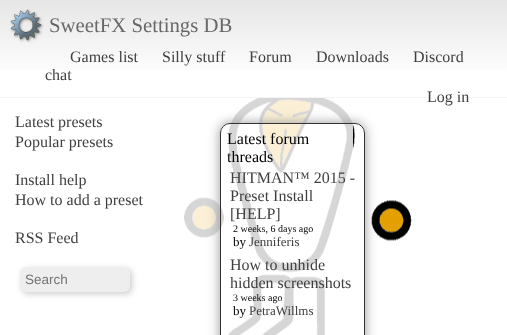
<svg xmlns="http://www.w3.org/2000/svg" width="507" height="335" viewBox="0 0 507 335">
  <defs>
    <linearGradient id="g1" gradientUnits="userSpaceOnUse" x1="254" y1="0" x2="254" y2="97"><stop offset="0" stop-color="rgb(230,230,230)"/><stop offset="0.8" stop-color="rgb(255,255,255)"/></linearGradient>
    <clipPath id="clip1"><path d="M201 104H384V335H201ZM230 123H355C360.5 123 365 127.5 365 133V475C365 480.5 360.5 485 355 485H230C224.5 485 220 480.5 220 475V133C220 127.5 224.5 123 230 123Z" clip-rule="evenodd"/></clipPath>
  </defs>
  <rect width="100%" height="100%" fill="rgb(255,255,255)"/>
  <image x="184" y="98" width="228" height="237" href="pic1.png"/>
  <rect x="0" y="0" width="507" height="70" fill="url(#g1)"/>
  <rect x="0" y="97" width="507" height="1" fill="rgb(245,245,245)"/>
  <image x="10" y="9" width="34" height="34" href="pic2.png"/>
  <text x="49" y="32" font-family="Liberation Serif" font-size="20.75" fill="rgb(104,104,104)">SweetFX Settings DB</text>
  <g font-family="Liberation Serif" font-size="16" fill="rgb(63,63,63)">
    <text x="70" y="62">Games list</text>
    <text x="162" y="62">Silly stuff</text>
    <text x="249" y="62">Forum</text>
    <text x="316" y="62">Downloads</text>
    <text x="413" y="62">Discord</text>
    <text x="45" y="80">chat</text>
    <text x="427" y="102">Log in</text>
    <text>
      <tspan x="15" y="127">Latest presets</tspan>
      <tspan x="15" y="147">Popular presets</tspan>
    </text>
    <text>
      <tspan x="15" y="185">Install help</tspan>
      <tspan x="15" y="205">How to add a preset</tspan>
    </text>
    <text x="15" y="243">RSS Feed</text>
  </g>
  <rect x="22" y="269" width="110" height="25" rx="6" fill="rgba(50,50,50,0.25)" filter="blur(3px)"/>
  <rect x="20" y="267" width="110" height="25" rx="6" fill="rgb(238,238,238)"/>
  <text x="25" y="284" font-family="Liberation Sans" font-size="13.5" fill="rgb(117,117,117)">Search</text>
  <rect x="184" y="98" width="169" height="237" fill="rgba(255,255,255,0.84)"/>
  <g clip-path="url(#clip1)">
    <rect x="220" y="123" width="145" height="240" rx="10" fill="rgb(153,153,153)" filter="blur(6px)"/>
  </g>
  <rect x="220.5" y="123.5" width="144" height="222" rx="9.5" fill="none" stroke="rgb(51,51,51)"/>
  <g font-family="Liberation Serif" font-size="16" fill="rgb(0,0,0)">
    <text>
      <tspan x="227" y="144">Latest forum</tspan>
      <tspan x="227" y="162">threads</tspan>
    </text>
  </g>
  <g font-family="Liberation Serif" font-size="16" fill="rgb(63,63,63)">
    <text>
      <tspan x="230" y="183">HITMAN™ 2015 -</tspan>
      <tspan x="230" y="201">Preset Install</tspan>
      <tspan x="230" y="219">[HELP]</tspan>
    </text>
  </g>
  <text x="233" y="232" font-family="Liberation Serif" font-size="10" fill="rgb(0,0,0)">2 weeks, 6 days ago</text>
  <text x="233" y="246" font-family="Liberation Serif" font-size="13" fill="rgb(0,0,0)">by</text>
  <text x="249" y="246" font-family="Liberation Serif" font-size="13" fill="rgb(63,63,63)">Jenniferis</text>
  <g font-family="Liberation Serif" font-size="16" fill="rgb(63,63,63)">
    <text>
      <tspan x="230" y="270">How to unhide</tspan>
      <tspan x="230" y="288">hidden screenshots</tspan>
    </text>
  </g>
  <text x="233" y="301" font-family="Liberation Serif" font-size="10" fill="rgb(0,0,0)">3 weeks ago</text>
  <text x="233" y="315" font-family="Liberation Serif" font-size="13" fill="rgb(0,0,0)">by</text>
  <text x="249" y="315" font-family="Liberation Serif" font-size="13" fill="rgb(63,63,63)">PetraWillms</text>
</svg>
